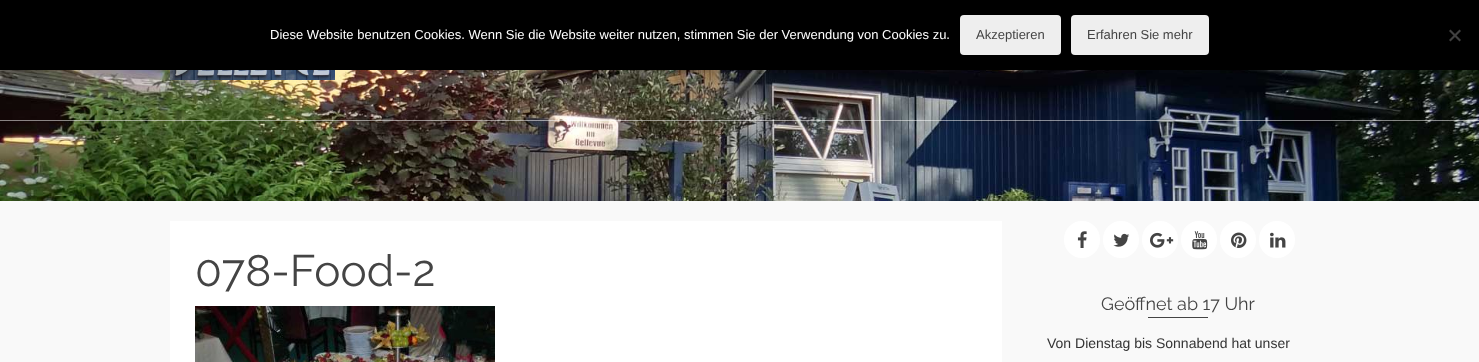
<svg xmlns="http://www.w3.org/2000/svg" width="1479" height="362" viewBox="0 0 1479 362">
  <rect width="100%" height="100%" fill="rgb(249,249,249)"/>
  <rect x="0" y="0" width="1479" height="70" fill="rgb(0,0,0)"/>
  <text x="270" y="39" font-family="Liberation Sans" font-size="13" fill="rgb(255,255,255)">Diese Website benutzen Cookies. Wenn Sie die Website weiter nutzen, stimmen Sie der Verwendung von Cookies zu.</text>
  <rect x="960" y="15" width="101" height="40" rx="4" fill="rgb(238,238,238)"/>
  <text x="976" y="39" font-family="Liberation Sans" font-size="13" fill="rgb(68,68,68)">Akzeptieren</text>
  <rect x="1071" y="15" width="138" height="40" rx="4" fill="rgb(238,238,238)"/>
  <text x="1087" y="39" font-family="Liberation Sans" font-size="13" fill="rgb(68,68,68)">Erfahren Sie mehr</text>
  <path d="M1459.5 29.5L1461 31L1450.5 41.5L1449 40Z" fill="rgb(64,64,64)"/>
  <path d="M1449 31L1450.5 29.5L1461 40L1459.5 41.5Z" fill="rgb(64,64,64)"/>
  <image x="0" y="70" width="1479" height="131" href="pic2.png"/>
  <rect x="0" y="120" width="1479" height="1" fill="rgba(255,255,255,0.5)"/>
  <image x="170" y="70" width="165" height="10" href="pic1.png"/>
  <rect x="170" y="221" width="832" height="141" fill="rgb(255,255,255)"/>
  <text x="195" y="286" font-family="Raleway" font-size="44" fill="rgb(68,68,68)">078-Food-2</text>
  <image x="195" y="306" width="300" height="56" href="pic3.png"/>
  <rect x="1064" y="221" width="36" height="37" rx="18" fill="rgb(255,255,255)"/>
  <image x="1077" y="231" width="10" height="17" href="pic4.png"/>
  <rect x="1103" y="221" width="36" height="37" rx="18" fill="rgb(255,255,255)"/>
  <image x="1113" y="233" width="17" height="14" href="pic5.png"/>
  <rect x="1142" y="221" width="36" height="37" rx="18" fill="rgb(255,255,255)"/>
  <image x="1150" y="232" width="24" height="16" href="pic6.png"/>
  <rect x="1181" y="221" width="36" height="37" rx="18" fill="rgb(255,255,255)"/>
  <image x="1192" y="231" width="16" height="19" href="pic7.png"/>
  <rect x="1220" y="221" width="36" height="37" rx="18" fill="rgb(255,255,255)"/>
  <image x="1231" y="232" width="16" height="16" href="pic8.png"/>
  <rect x="1259" y="221" width="36" height="37" rx="18" fill="rgb(255,255,255)"/>
  <image x="1270" y="232" width="16" height="16" href="pic9.png"/>
  <text x="1101" y="310" font-family="Raleway" font-size="18" fill="rgb(68,68,68)">Geöffnet ab 17 Uhr</text>
  <rect x="1148" y="317" width="60" height="1" fill="rgb(68,68,68)"/>
  <text x="1047" y="348" font-family="Liberation Sans" font-size="14" fill="rgb(51,51,51)">Von Dienstag bis Sonnabend hat unser</text>
</svg>
